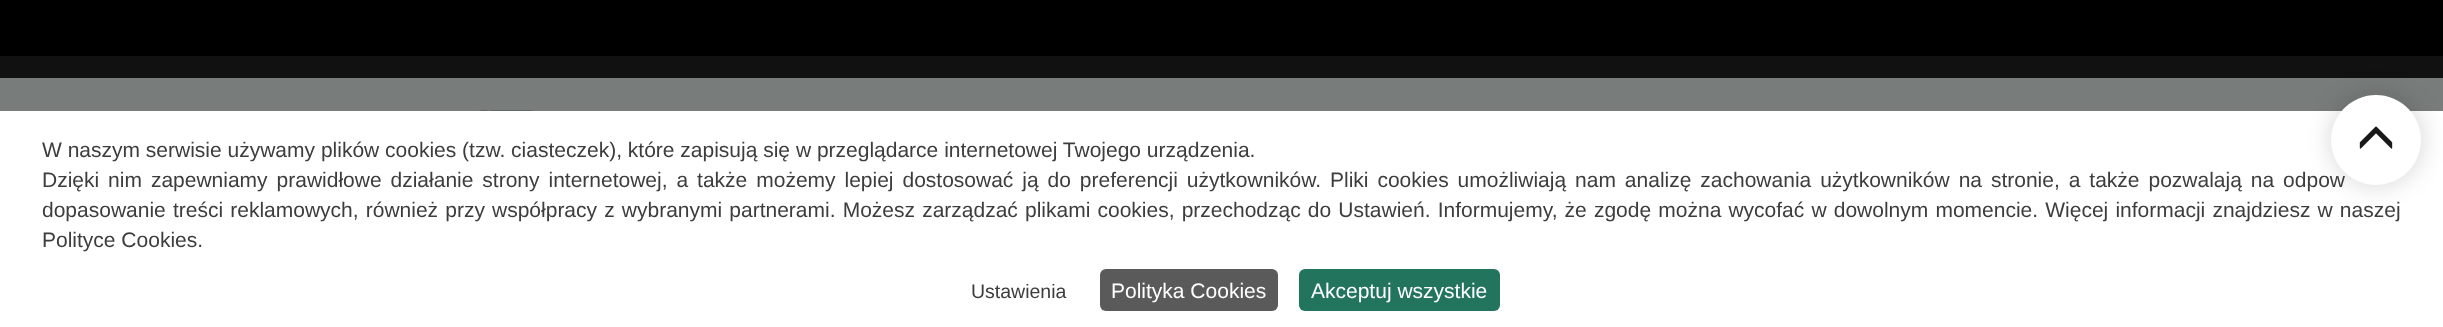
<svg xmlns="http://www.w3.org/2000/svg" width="2443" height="327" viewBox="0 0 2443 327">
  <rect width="100%" height="100%" fill="rgb(0,0,0)"/>
  <rect x="0" y="78" width="2443" height="33" fill="rgb(120,125,124)"/>
  <rect x="0" y="56" width="2443" height="22" fill="rgb(17,17,17)"/>
  <image x="479" y="110" width="55" height="1" href="pic1.png"/>
  <rect x="0" y="111" width="2443" height="216" fill="rgb(255,255,255)"/>
  <rect x="2330" y="93" width="93" height="93" rx="46.5" fill="rgba(0,0,0,0.15)" filter="blur(12px)"/>
  <text x="42" y="187" word-spacing="3.1" font-family="Liberation Sans" font-size="21" fill="rgb(61,61,61)">Dzięki nim zapewniamy prawidłowe działanie strony internetowej, a także możemy lepiej dostosować ją do preferencji użytkowników. Pliki cookies umożliwiają nam analizę zachowania użytkowników na stronie, a także pozwalają na odpow</text>
  <circle cx="2376" cy="140" r="45" fill="rgb(255,255,255)"/>
  <image x="2359" y="126" width="34" height="23" href="pic2.png"/>
  <g font-family="Liberation Sans" font-size="21" fill="rgb(61,61,61)">
    <text x="42" y="157">W naszym serwisie używamy plików cookies (tzw. ciasteczek), które zapisują się w przeglądarce internetowej Twojego urządzenia.</text>
    <text>
      <tspan x="42" y="217" word-spacing="1.3">dopasowanie treści reklamowych, również przy współpracy z wybranymi partnerami. Możesz zarządzać plikami cookies, przechodząc do Ustawień. Informujemy, że zgodę można wycofać w dowolnym momencie. Więcej informacji znajdziesz w naszej</tspan>
      <tspan x="42" y="247">Polityce Cookies.</tspan>
    </text>
  </g>
  <text x="971" y="298" font-family="Liberation Sans" font-size="19.5" fill="rgb(61,61,61)">Ustawienia</text>
  <rect x="1100" y="269" width="178" height="42" rx="6" fill="rgb(90,90,90)"/>
  <text x="1111" y="298" font-family="Liberation Sans" font-size="21" fill="rgb(255,255,255)">Polityka Cookies</text>
  <rect x="1299" y="269" width="201" height="42" rx="6" fill="rgb(34,116,93)"/>
  <text x="1311" y="298" font-family="Liberation Sans" font-size="21" fill="rgb(255,255,255)">Akceptuj wszystkie</text>
</svg>
